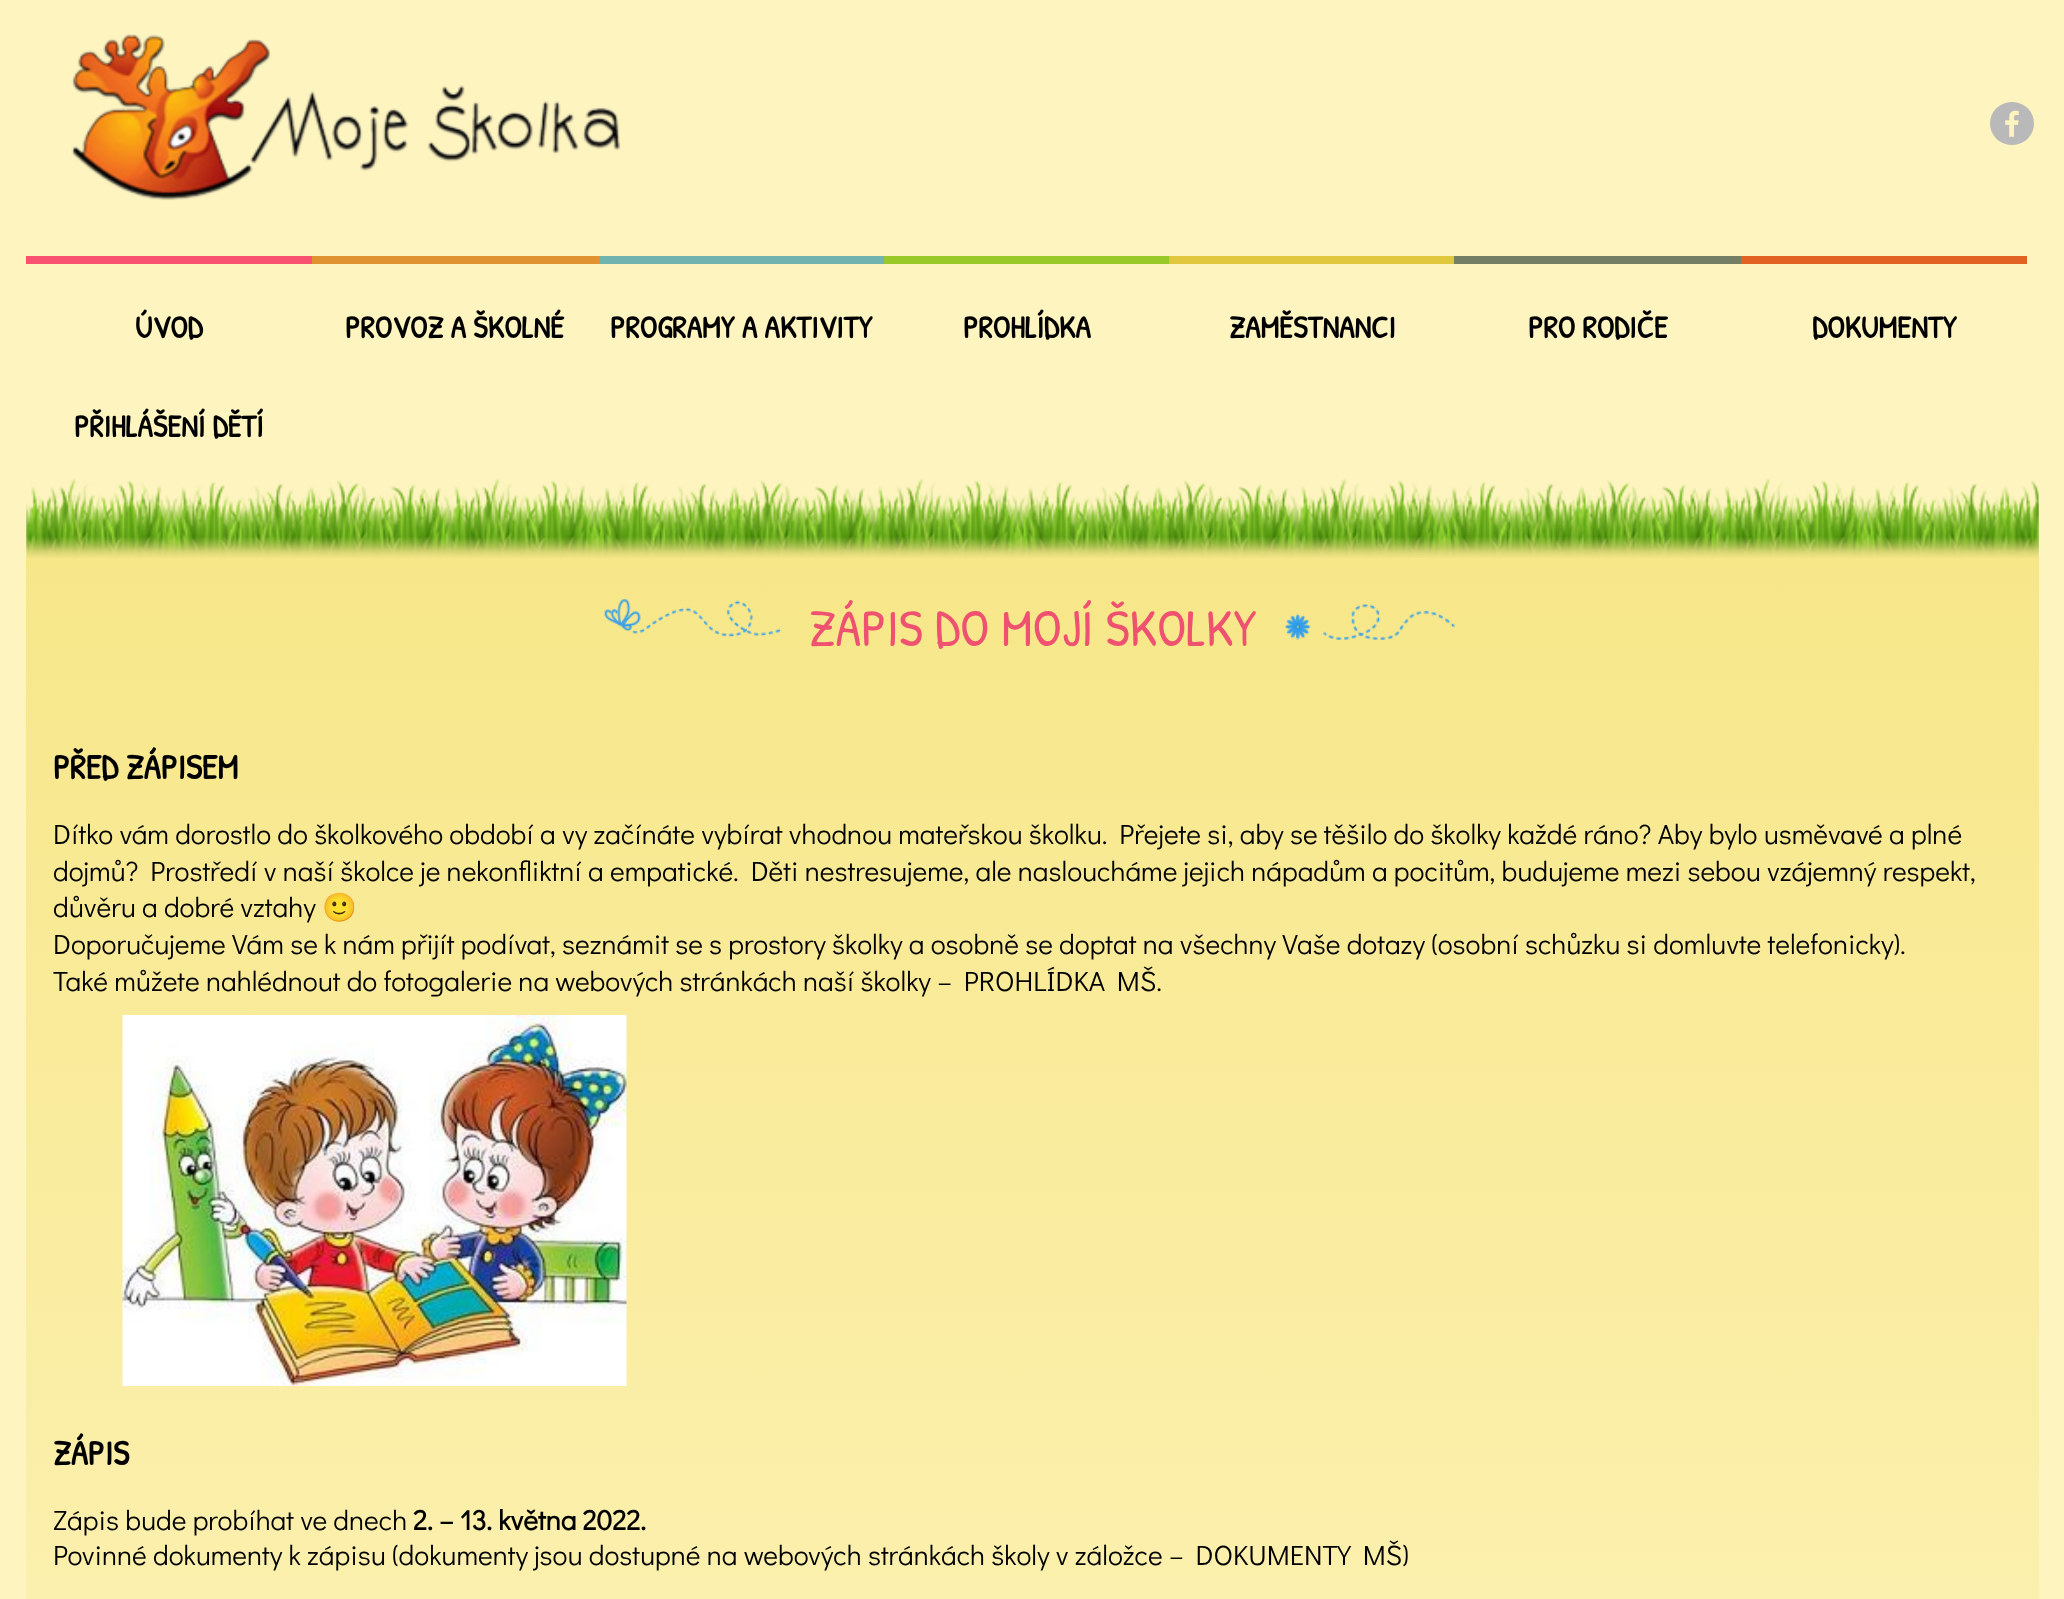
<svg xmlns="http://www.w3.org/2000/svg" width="2064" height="1599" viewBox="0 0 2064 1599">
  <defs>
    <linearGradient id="g1" gradientUnits="userSpaceOnUse" x1="1033" y1="558" x2="1033" y2="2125"><stop offset="0" stop-color="rgb(247,231,137)"/><stop offset="1" stop-color="rgb(253,244,191)"/></linearGradient>
  </defs>
  <rect width="100%" height="100%" fill="rgb(253,244,191)"/>
  <image x="71" y="34" width="550" height="167" href="pic1.png"/>
  <rect x="1990" y="102" width="44" height="43" rx="21.5" fill="rgb(185,185,185)"/>
  <image x="2005" y="110" width="14" height="27" href="pic2.png"/>
  <rect x="26" y="256" width="286" height="8" fill="rgb(249,81,112)"/>
  <text x="135" y="338" font-family="Patrick Hand SC" font-size="31.5" font-weight="bold" fill="rgb(0,0,0)">ÚVOD</text>
  <rect x="312" y="256" width="287" height="8" fill="rgb(224,146,49)"/>
  <text x="345" y="338" font-family="Patrick Hand SC" font-size="31.5" font-weight="bold" fill="rgb(0,0,0)">PROVOZ A ŠKOLNÉ</text>
  <rect x="599" y="256" width="285" height="8" fill="rgb(113,179,175)"/>
  <text x="610" y="338" font-family="Patrick Hand SC" font-size="31.5" font-weight="bold" fill="rgb(0,0,0)">PROGRAMY A AKTIVITY</text>
  <rect x="884" y="256" width="285" height="8" fill="rgb(153,200,41)"/>
  <text x="963" y="338" font-family="Patrick Hand SC" font-size="31.5" font-weight="bold" fill="rgb(0,0,0)">PROHLÍDKA</text>
  <rect x="1169" y="256" width="285" height="8" fill="rgb(224,199,61)"/>
  <text x="1229" y="338" font-family="Patrick Hand SC" font-size="31.5" font-weight="bold" fill="rgb(0,0,0)">ZAMĚSTNANCI</text>
  <rect x="1454" y="256" width="287" height="8" fill="rgb(116,126,100)"/>
  <text x="1528" y="338" font-family="Patrick Hand SC" font-size="31.5" font-weight="bold" fill="rgb(0,0,0)">PRO RODIČE</text>
  <rect x="1741" y="256" width="286" height="8" fill="rgb(226,98,36)"/>
  <g font-family="Patrick Hand SC" font-size="31.5" font-weight="bold" fill="rgb(0,0,0)">
    <text x="1812" y="338">DOKUMENTY</text>
    <text x="74" y="437">PŘIHLÁŠENÍ DĚTÍ</text>
  </g>
  <rect x="26" y="558" width="2013" height="1041" fill="url(#g1)"/>
  <image x="26" y="478" width="2013" height="80" href="pic3.png"/>
  <image x="604" y="599" width="177" height="38" href="pic4.png"/>
  <text x="809" y="646" font-family="Patrick Hand SC" font-size="52.5" fill="rgb(239,81,112)">ZÁPIS DO MOJÍ ŠKOLKY</text>
  <image x="1285" y="604" width="170" height="36" href="pic5.png"/>
  <text x="53" y="779" font-family="Patrick Hand SC" font-size="35" font-weight="bold" fill="rgb(0,0,0)">PŘED ZÁPISEM</text>
  <g font-family="Didact Gothic" font-size="28" fill="rgb(0,0,0)">
    <text>
      <tspan x="53" y="844">Dítko vám dorostlo do školkového období a vy začínáte vybírat vhodnou mateřskou školku. Přejete si, aby se těšilo do školky každé ráno? Aby bylo usměvavé a plné</tspan>
      <tspan x="53" y="881">dojmů? Prostředí v naší školce je nekonfliktní a empatické. Děti nestresujeme, ale nasloucháme jejich nápadům a pocitům, budujeme mezi sebou vzájemný respekt,</tspan>
      <tspan x="53" y="917">důvěru a dobré vztahy</tspan>
    </text>
  </g>
  <text x="322" y="917" font-family="Noto Color Emoji" font-size="28" fill="rgb(0,0,0)">🙂</text>
  <g font-family="Didact Gothic" font-size="28" fill="rgb(0,0,0)">
    <text>
      <tspan x="53" y="954">Doporučujeme Vám se k nám přijít podívat, seznámit se s prostory školky a osobně se doptat na všechny Vaše dotazy (osobní schůzku si domluvte telefonicky).</tspan>
      <tspan x="53" y="991">Také můžete nahlédnout do fotogalerie na webových stránkách naší školky – PROHLÍDKA MŠ.</tspan>
    </text>
  </g>
  <image x="122" y="1015" width="505" height="371" href="pic6.png"/>
  <text x="53" y="1465" font-family="Patrick Hand SC" font-size="35" font-weight="bold" fill="rgb(0,0,0)">ZÁPIS</text>
  <text x="53" y="1530" font-family="Didact Gothic" font-size="28" fill="rgb(0,0,0)">Zápis bude probíhat ve dnech</text>
  <text x="413" y="1530" font-family="Didact Gothic" font-size="28" font-weight="bold" fill="rgb(0,0,0)">2. – 13. května 2022.</text>
  <text x="53" y="1565" font-family="Didact Gothic" font-size="28" fill="rgb(0,0,0)">Povinné dokumenty k zápisu (dokumenty jsou dostupné na webových stránkách školy v záložce – DOKUMENTY MŠ)</text>
</svg>
